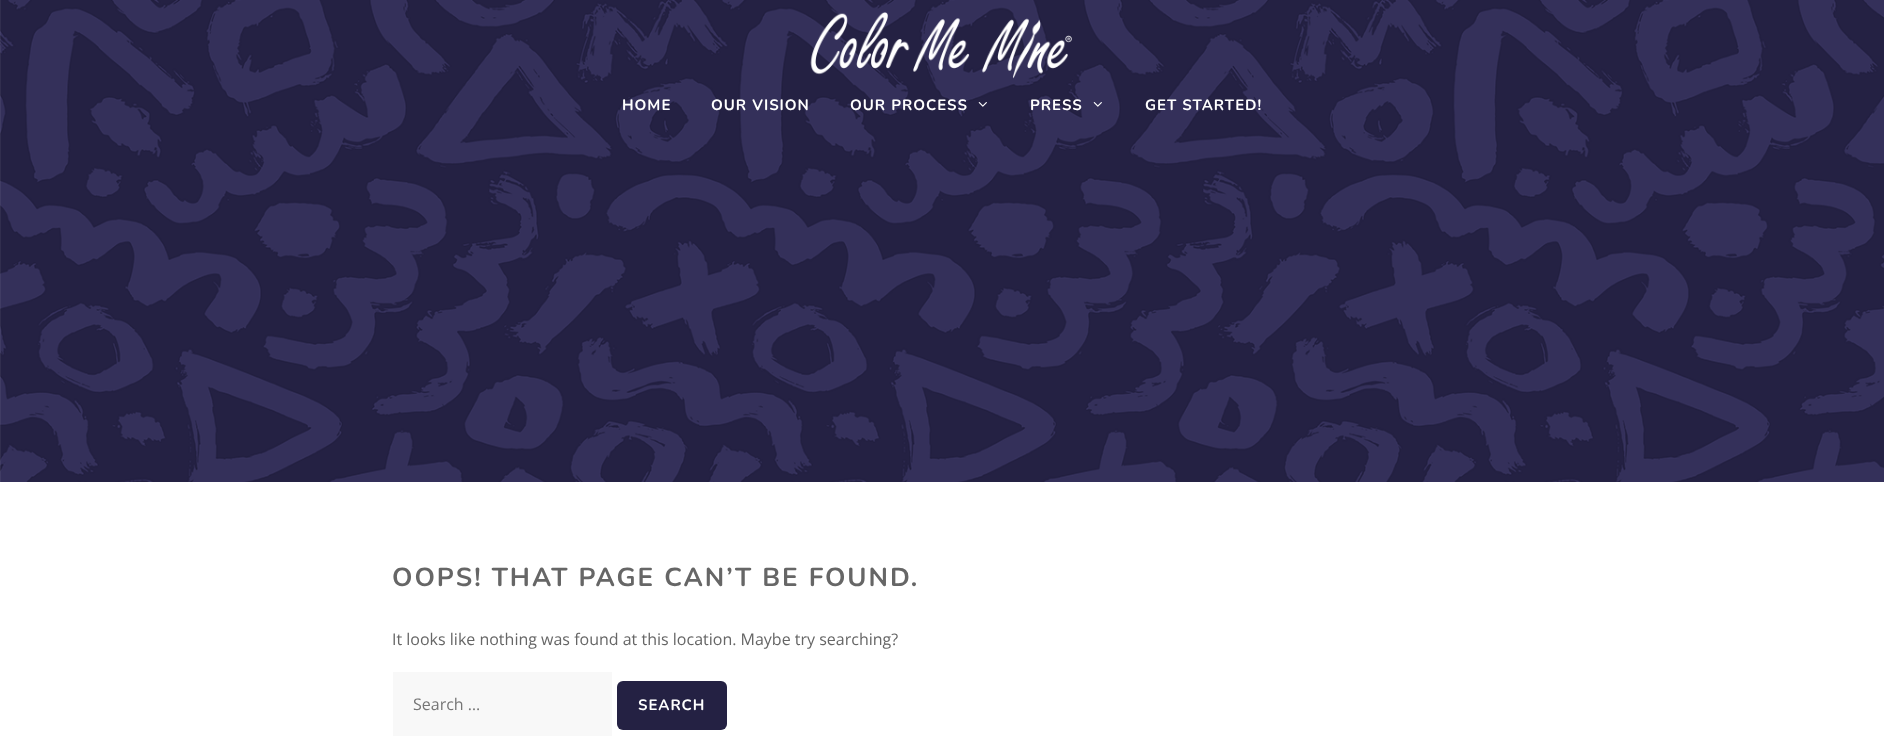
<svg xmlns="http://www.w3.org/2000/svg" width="1884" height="742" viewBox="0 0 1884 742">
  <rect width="100%" height="100%" fill="rgb(255,255,255)"/>
  <image x="0" y="0" width="1884" height="482" href="pic1.png"/>
  <image x="810" y="12" width="262" height="67" href="pic2.png"/>
  <g font-family="Nunito" font-size="15" font-weight="bold" letter-spacing="1" fill="rgb(255,255,255)">
    <text x="622" y="110">HOME</text>
    <text x="711" y="110">OUR VISION</text>
    <text x="850" y="110">OUR PROCESS</text>
  </g>
  <image x="978" y="102" width="9" height="5" href="pic3.png"/>
  <text x="1030" y="110" font-family="Nunito" font-size="15" font-weight="bold" letter-spacing="1" fill="rgb(255,255,255)">PRESS</text>
  <image x="1093" y="102" width="9" height="5" href="pic4.png"/>
  <text x="1145" y="110" font-family="Nunito" font-size="15" font-weight="bold" letter-spacing="1" fill="rgb(255,255,255)">GET STARTED!</text>
  <text x="392" y="586" font-family="Nunito" font-size="26" font-weight="bold" letter-spacing="2" fill="rgb(102,102,102)">OOPS! THAT PAGE CAN’T BE FOUND.</text>
  <text x="392" y="645" font-family="Open Sans" font-size="16" fill="rgb(102,102,102)">It looks like nothing was found at this location. Maybe try searching?</text>
  <rect x="393" y="672" width="219" height="64" fill="rgb(248,248,248)"/>
  <text x="413" y="710" font-family="Open Sans" font-size="16" fill="rgb(117,117,117)">Search …</text>
  <rect x="617" y="681" width="110" height="49" rx="6" fill="rgb(36,33,67)"/>
  <text x="638" y="710" font-family="Nunito" font-size="15" font-weight="bold" letter-spacing="1" fill="rgb(255,255,255)">SEARCH</text>
</svg>
